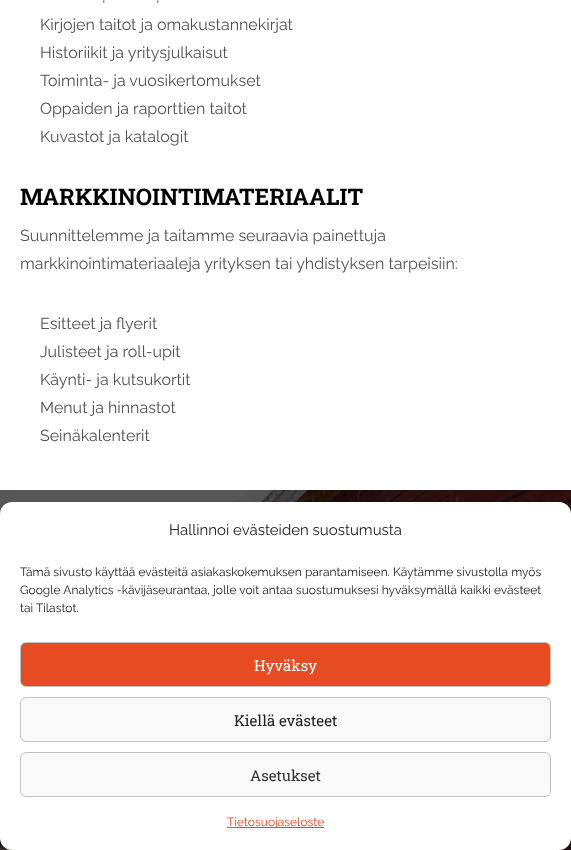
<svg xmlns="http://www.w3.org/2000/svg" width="571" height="850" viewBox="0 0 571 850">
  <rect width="100%" height="100%" fill="rgb(255,255,255)"/>
  <g font-family="Raleway" font-size="16" fill="rgb(81,81,81)">
    <text x="102" y="2">,</text>
    <text x="156" y="2">,</text>
    <text>
      <tspan x="40" y="30">Kirjojen taitot ja omakustannekirjat</tspan>
      <tspan x="40" y="58">Historiikit ja yritysjulkaisut</tspan>
      <tspan x="40" y="86">Toiminta- ja vuosikertomukset</tspan>
      <tspan x="40" y="114">Oppaiden ja raporttien taitot</tspan>
      <tspan x="40" y="142">Kuvastot ja katalogit</tspan>
    </text>
  </g>
  <text x="20" y="205" font-family="Roboto Slab" font-size="23" font-weight="bold" fill="rgb(0,0,0)">MARKKINOINTIMATERIAALIT</text>
  <g font-family="Raleway" font-size="16" fill="rgb(81,81,81)">
    <text>
      <tspan x="20" y="241">Suunnittelemme ja taitamme seuraavia painettuja</tspan>
      <tspan x="20" y="269">markkinointimateriaaleja yrityksen tai yhdistyksen tarpeisiin:</tspan>
    </text>
    <text>
      <tspan x="40" y="329">Esitteet ja flyerit</tspan>
      <tspan x="40" y="357">Julisteet ja roll-upit</tspan>
      <tspan x="40" y="385">Käynti- ja kutsukortit</tspan>
      <tspan x="40" y="413">Menut ja hinnastot</tspan>
      <tspan x="40" y="441">Seinäkalenterit</tspan>
    </text>
  </g>
  <image x="0" y="490" width="571" height="360" href="pic1.png"/>
  <rect x="0" y="508" width="571" height="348" rx="12" fill="rgba(0,0,0,0.23)" filter="blur(3px)"/>
  <rect x="0" y="512" width="571" height="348" rx="12" fill="rgba(0,0,0,0.19)" filter="blur(10px)"/>
  <rect x="0" y="502" width="571" height="348" rx="12" fill="rgb(255,255,255)"/>
  <text x="169" y="535" font-family="Raleway" font-size="15" fill="rgb(34,34,34)">Hallinnoi evästeiden suostumusta</text>
  <g font-family="Raleway" font-size="12" fill="rgb(34,34,34)">
    <text>
      <tspan x="20" y="576">Tämä sivusto käyttää evästeitä asiakaskokemuksen parantamiseen. Käytämme sivustolla myös</tspan>
      <tspan x="20" y="594">Google Analytics -kävijäseurantaa, jolle voit antaa suostumuksesi hyväksymällä kaikki evästeet</tspan>
      <tspan x="20" y="612">tai Tilastot.</tspan>
    </text>
  </g>
  <rect x="20.5" y="642.5" width="530" height="44" rx="5.5" fill="rgb(230,75,34)" stroke="rgb(193,193,193)"/>
  <text x="254" y="671" font-family="Roboto Slab" font-size="15" fill="rgb(255,255,255)">Hyväksy</text>
  <rect x="20.5" y="697.5" width="530" height="44" rx="5.5" fill="rgb(249,249,249)" stroke="rgb(193,193,193)"/>
  <text x="234" y="726" font-family="Roboto Slab" font-size="15" fill="rgb(34,34,34)">Kiellä evästeet</text>
  <rect x="20.5" y="752.5" width="530" height="44" rx="5.5" fill="rgb(249,249,249)" stroke="rgb(193,193,193)"/>
  <text x="250" y="781" font-family="Roboto Slab" font-size="15" fill="rgb(51,51,51)">Asetukset</text>
  <rect x="227" y="827" width="97" height="1" fill="rgb(230,75,34)"/>
  <text x="227" y="826" font-family="Raleway" font-size="12" fill="rgb(230,75,34)">Tietosuojaseloste</text>
</svg>
